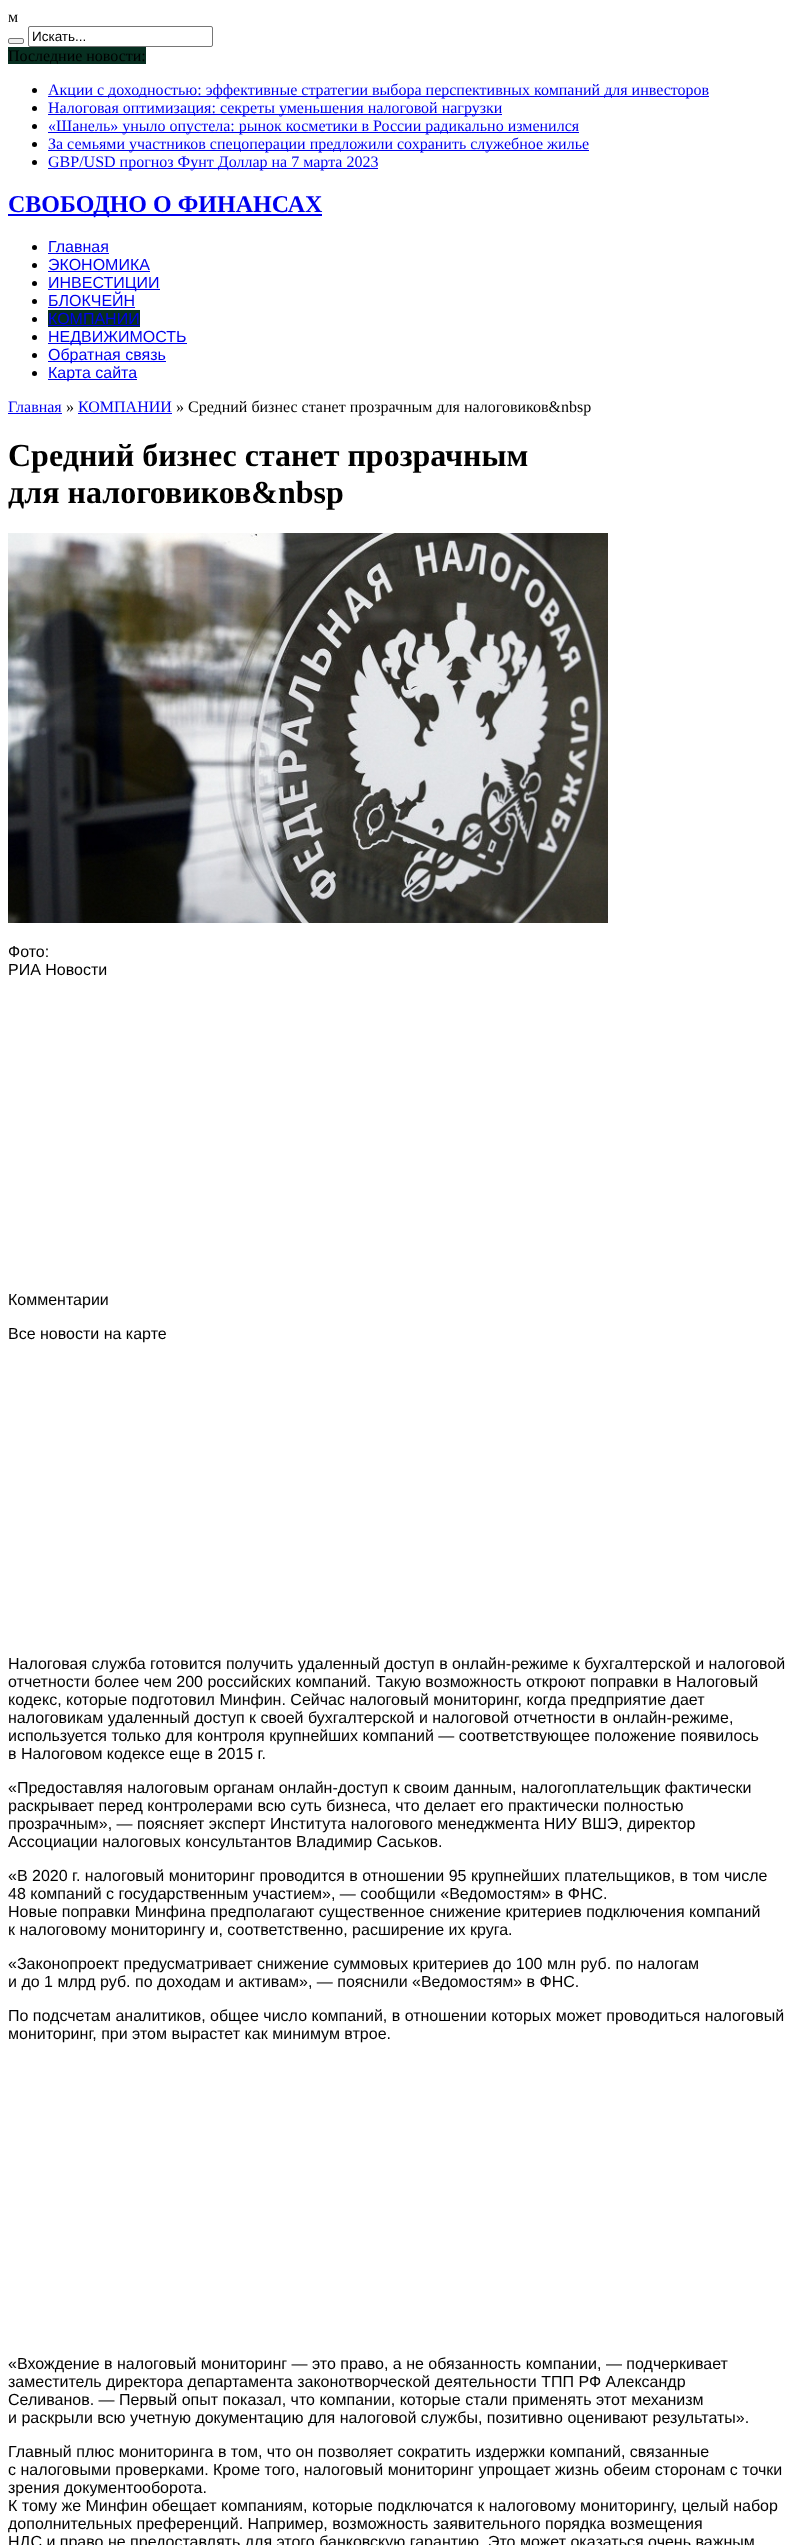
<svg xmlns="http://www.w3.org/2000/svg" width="794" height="2545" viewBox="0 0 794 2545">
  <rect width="100%" height="100%" fill="rgb(255,255,255)"/>
  <text x="8" y="22" font-family="Liberation Serif" font-size="16" fill="rgb(0,0,0)">м</text>
  <rect x="8.5" y="38.5" width="15" height="5" rx="1.5" fill="rgb(239,239,239)" stroke="rgb(118,118,118)"/>
  <rect x="28.5" y="26.5" width="184" height="20" rx="1.5" fill="none" stroke="rgb(118,118,118)"/>
  <text x="32" y="41" font-family="Liberation Sans" font-size="13.5" fill="rgb(0,0,0)">Искать...</text>
  <rect x="8" y="47" width="138" height="17" fill="rgb(7,46,32)"/>
  <text x="8" y="61" font-family="Liberation Serif" font-size="16" fill="rgb(0,0,0)">Последние новости:</text>
  <circle cx="34.5" cy="90.5" r="2.5" fill="rgb(0,0,0)"/>
  <rect x="48" y="96" width="661" height="1" fill="rgb(0,0,238)"/>
  <text x="48" y="95" font-family="Liberation Serif" font-size="16" fill="rgb(0,0,238)">Акции с доходностью: эффективные стратегии выбора перспективных компаний для инвесторов</text>
  <circle cx="34.5" cy="108.5" r="2.5" fill="rgb(0,0,0)"/>
  <rect x="48" y="114" width="454" height="1" fill="rgb(0,0,238)"/>
  <text x="48" y="113" font-family="Liberation Serif" font-size="16" fill="rgb(0,0,238)">Налоговая оптимизация: секреты уменьшения налоговой нагрузки</text>
  <circle cx="34.5" cy="126.5" r="2.5" fill="rgb(0,0,0)"/>
  <rect x="48" y="132" width="531" height="1" fill="rgb(0,0,238)"/>
  <text x="48" y="131" font-family="Liberation Serif" font-size="16" fill="rgb(0,0,238)">«Шанель» уныло опустела: рынок косметики в России радикально изменился</text>
  <circle cx="34.5" cy="144.5" r="2.5" fill="rgb(0,0,0)"/>
  <rect x="48" y="150" width="541" height="1" fill="rgb(0,0,238)"/>
  <text x="48" y="149" font-family="Liberation Serif" font-size="16" fill="rgb(0,0,238)">За семьями участников спецоперации предложили сохранить служебное жилье</text>
  <circle cx="34.5" cy="162.5" r="2.5" fill="rgb(0,0,0)"/>
  <rect x="48" y="168" width="330" height="1" fill="rgb(0,0,238)"/>
  <text x="48" y="167" font-family="Liberation Serif" font-size="16" fill="rgb(0,0,238)">GBP/USD прогноз Фунт Доллар на 7 марта 2023</text>
  <rect x="8" y="214" width="314" height="2" fill="rgb(0,0,238)"/>
  <text x="8" y="212" font-family="Liberation Serif" font-size="24" font-weight="bold" fill="rgb(0,0,238)">СВОБОДНО О ФИНАНСАХ</text>
  <circle cx="34.5" cy="247.5" r="2.5" fill="rgb(0,0,0)"/>
  <text x="48" y="252" font-family="Liberation Sans" font-size="16" fill="rgb(0,0,238)">Главная</text>
  <rect x="48" y="253" width="61" height="1" fill="rgb(0,0,238)"/>
  <circle cx="34.5" cy="265.5" r="2.5" fill="rgb(0,0,0)"/>
  <text x="48" y="270" font-family="Liberation Sans" font-size="16" fill="rgb(0,0,238)">ЭКОНОМИКА</text>
  <rect x="48" y="271" width="102" height="1" fill="rgb(0,0,238)"/>
  <circle cx="34.5" cy="283.5" r="2.5" fill="rgb(0,0,0)"/>
  <rect x="48" y="289" width="112" height="1" fill="rgb(0,0,238)"/>
  <text x="48" y="288" font-family="Liberation Sans" font-size="16" fill="rgb(0,0,238)">ИНВЕСТИЦИИ</text>
  <circle cx="34.5" cy="301.5" r="2.5" fill="rgb(0,0,0)"/>
  <text x="48" y="306" font-family="Liberation Sans" font-size="16" fill="rgb(0,0,238)">БЛОКЧЕЙН</text>
  <rect x="48" y="307" width="87" height="1" fill="rgb(0,0,238)"/>
  <circle cx="34.5" cy="319.5" r="2.5" fill="rgb(0,0,0)"/>
  <rect x="48" y="310" width="92" height="17" fill="rgb(7,46,32)"/>
  <text x="48" y="324" font-family="Liberation Sans" font-size="16" fill="rgb(0,0,238)">КОМПАНИИ</text>
  <rect x="48" y="325" width="92" height="1" fill="rgb(0,0,238)"/>
  <circle cx="34.5" cy="337.5" r="2.5" fill="rgb(0,0,0)"/>
  <rect x="48" y="343" width="139" height="1" fill="rgb(0,0,238)"/>
  <text x="48" y="342" font-family="Liberation Sans" font-size="16" fill="rgb(0,0,238)">НЕДВИЖИМОСТЬ</text>
  <circle cx="34.5" cy="355.5" r="2.5" fill="rgb(0,0,0)"/>
  <rect x="48" y="361" width="118" height="1" fill="rgb(0,0,238)"/>
  <text x="48" y="360" font-family="Liberation Sans" font-size="16" fill="rgb(0,0,238)">Обратная связь</text>
  <circle cx="34.5" cy="373.5" r="2.5" fill="rgb(0,0,0)"/>
  <rect x="48" y="379" width="89" height="1" fill="rgb(0,0,238)"/>
  <text x="48" y="378" font-family="Liberation Sans" font-size="16" fill="rgb(0,0,238)">Карта сайта</text>
  <text x="8" y="412" font-family="Liberation Serif" font-size="16" fill="rgb(0,0,238)">Главная</text>
  <rect x="8" y="413" width="54" height="1" fill="rgb(0,0,238)"/>
  <text x="66" y="412" font-family="Liberation Serif" font-size="16" fill="rgb(0,0,0)">»</text>
  <text x="78" y="412" font-family="Liberation Serif" font-size="16" fill="rgb(0,0,238)">КОМПАНИИ</text>
  <rect x="78" y="413" width="94" height="1" fill="rgb(0,0,238)"/>
  <text x="176" y="412" font-family="Liberation Serif" font-size="16" fill="rgb(0,0,0)">» Средний бизнес станет прозрачным для налоговиков&amp;nbsp</text>
  <g font-family="Liberation Serif" font-size="32" font-weight="bold" fill="rgb(0,0,0)">
    <text>
      <tspan x="8" y="466">Средний бизнес станет прозрачным</tspan>
      <tspan x="8" y="503">для налоговиков&amp;nbsp</tspan>
    </text>
  </g>
  <image x="8" y="533" width="600" height="390" href="pic1.png"/>
  <g font-family="Liberation Sans" font-size="16" fill="rgb(0,0,0)">
    <text>
      <tspan x="8" y="957">Фото:</tspan>
      <tspan x="8" y="975">РИА Новости</tspan>
    </text>
    <text x="8" y="1305">Комментарии</text>
    <text x="8" y="1339">Все новости на карте</text>
    <text>
      <tspan x="8" y="1669">Налоговая служба готовится получить удаленный доступ в онлайн-режиме к бухгалтерской и налоговой</tspan>
      <tspan x="8" y="1687">отчетности более чем 200 российских компаний. Такую возможность откроют поправки в Налоговый</tspan>
      <tspan x="8" y="1705">кодекс, которые подготовил Минфин. Сейчас налоговый мониторинг, когда предприятие дает</tspan>
      <tspan x="8" y="1723">налоговикам удаленный доступ к своей бухгалтерской и налоговой отчетности в онлайн-режиме,</tspan>
      <tspan x="8" y="1741">используется только для контроля крупнейших компаний — соответствующее положение появилось</tspan>
      <tspan x="8" y="1759">в Налоговом кодексе еще в 2015 г.</tspan>
    </text>
    <text>
      <tspan x="8" y="1793">«Предоставляя налоговым органам онлайн-доступ к своим данным, налогоплательщик фактически</tspan>
      <tspan x="8" y="1811">раскрывает перед контролерами всю суть бизнеса, что делает его практически полностью</tspan>
      <tspan x="8" y="1829">прозрачным», — поясняет эксперт Института налогового менеджмента НИУ ВШЭ, директор</tspan>
      <tspan x="8" y="1847">Ассоциации налоговых консультантов Владимир Саськов.</tspan>
    </text>
    <text>
      <tspan x="8" y="1881">«В 2020 г. налоговый мониторинг проводится в отношении 95 крупнейших плательщиков, в том числе</tspan>
      <tspan x="8" y="1899">48 компаний с государственным участием», — сообщили «Ведомостям» в ФНС.</tspan>
      <tspan x="8" y="1917">Новые поправки Минфина предполагают существенное снижение критериев подключения компаний</tspan>
      <tspan x="8" y="1935">к налоговому мониторингу и, соответственно, расширение их круга.</tspan>
    </text>
    <text>
      <tspan x="8" y="1969">«Законопроект предусматривает снижение суммовых критериев до 100 млн руб. по налогам</tspan>
      <tspan x="8" y="1987">и до 1 млрд руб. по доходам и активам», — пояснили «Ведомостям» в ФНС.</tspan>
    </text>
    <text>
      <tspan x="8" y="2021">По подсчетам аналитиков, общее число компаний, в отношении которых может проводиться налоговый</tspan>
      <tspan x="8" y="2039">мониторинг, при этом вырастет как минимум втрое.</tspan>
    </text>
    <text>
      <tspan x="8" y="2369">«Вхождение в налоговый мониторинг — это право, а не обязанность компании, — подчеркивает</tspan>
      <tspan x="8" y="2387">заместитель директора департамента законотворческой деятельности ТПП РФ Александр</tspan>
      <tspan x="8" y="2405">Селиванов. — Первый опыт показал, что компании, которые стали применять этот механизм</tspan>
      <tspan x="8" y="2423">и раскрыли всю учетную документацию для налоговой службы, позитивно оценивают результаты».</tspan>
    </text>
    <text>
      <tspan x="8" y="2457">Главный плюс мониторинга в том, что он позволяет сократить издержки компаний, связанные</tspan>
      <tspan x="8" y="2475">с налоговыми проверками. Кроме того, налоговый мониторинг упрощает жизнь обеим сторонам с точки</tspan>
      <tspan x="8" y="2493">зрения документооборота.</tspan>
      <tspan x="8" y="2511">К тому же Минфин обещает компаниям, которые подключатся к налоговому мониторингу, целый набор</tspan>
      <tspan x="8" y="2529">дополнительных преференций. Например, возможность заявительного порядка возмещения</tspan>
      <tspan x="8" y="2547">НДС и право не предоставлять для этого банковскую гарантию. Это может оказаться очень важным</tspan>
    </text>
  </g>
</svg>
